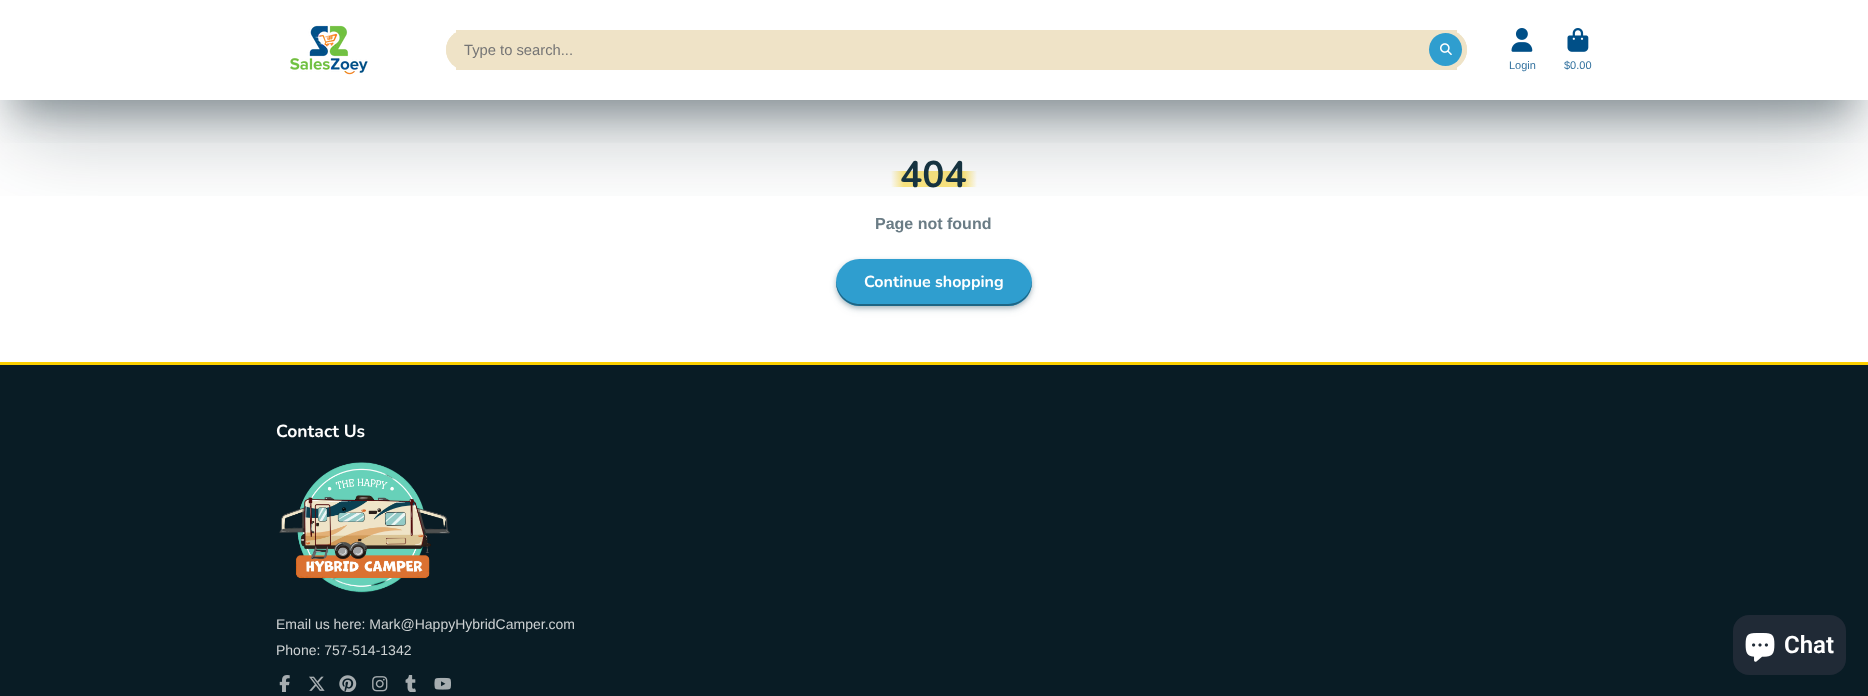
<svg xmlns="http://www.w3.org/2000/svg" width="1868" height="696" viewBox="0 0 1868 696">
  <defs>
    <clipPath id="clip1"><rect x="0" y="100" width="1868" height="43"/></clipPath>
    <linearGradient id="g1" gradientUnits="userSpaceOnUse" x1="891" y1="179" x2="977" y2="179"><stop offset="0" stop-color="rgb(255,255,255)"/><stop offset="0.15" stop-color="rgb(253,231,128)"/><stop offset="0.85" stop-color="rgb(253,231,128)"/><stop offset="1" stop-color="rgb(255,255,255)"/></linearGradient>
    <clipPath id="clip2"><rect x="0" y="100" width="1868" height="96"/></clipPath>
  </defs>
  <rect width="100%" height="100%" fill="rgb(255,255,255)"/>
  <g clip-path="url(#clip1)">
    <rect x="14" y="40" width="1840" height="72" fill="rgba(15,36,45,0.4)" filter="blur(19px)"/>
  </g>
  <rect x="891" y="171" width="86" height="16" fill="url(#g1)"/>
  <rect x="838" y="266" width="192" height="42" rx="21" fill="rgba(19,63,82,0.15)" filter="blur(5px)"/>
  <rect x="836" y="261" width="196" height="47" rx="23.5" fill="rgba(19,63,82,0.3)" filter="blur(2.5px)"/>
  <rect x="836" y="259" width="196" height="47" rx="23.5" fill="rgb(47,158,207)"/>
  <g clip-path="url(#clip2)">
    <rect x="14" y="58" width="1840" height="72" fill="rgba(15,36,45,0.3)" filter="blur(44px)"/>
  </g>
  <image x="290" y="25" width="78" height="50" href="pic1.png"/>
  <rect x="446" y="30" width="1021" height="40" rx="20" fill="rgb(239,227,199)"/>
  <rect x="456" y="30" width="1001" height="40" fill="rgb(239,227,199)"/>
  <rect x="446" y="30" width="1021" height="39" rx="19.5" fill="rgb(239,227,199)"/>
  <text x="464" y="55" font-family="Liberation Sans" font-size="14.75" fill="rgb(117,117,117)">Type to search...</text>
  <circle cx="1445.5" cy="49.5" r="16.5" fill="rgb(47,158,207)"/>
  <image x="1440" y="43" width="12" height="12" href="pic2.png"/>
  <image x="1511" y="28" width="22" height="24" href="pic3.png"/>
  <text x="1509" y="69" font-family="Liberation Sans" font-size="11" fill="rgb(51,114,159)">Login</text>
  <image x="1567" y="28" width="22" height="24" href="pic4.png"/>
  <text x="1564" y="69" font-family="Liberation Sans" font-size="11" fill="rgb(51,114,159)">$0.00</text>
  <text x="900" y="187" font-family="Nunito" font-size="37" font-weight="bold" fill="rgb(22,51,64)">404</text>
  <text x="875" y="229" font-family="Liberation Sans" font-size="16" font-weight="bold" fill="rgb(106,124,133)">Page not found</text>
  <path d="M836 281V282C836 295 847 306 860 306H1008C1021 306 1032 295 1032 282V281C1031 294 1021 304 1008 304H860C847 304 837 294 836 281Z" fill="rgb(30,101,132)"/>
  <text x="864" y="287" font-family="Nunito" font-size="16" font-weight="bold" fill="rgb(255,255,255)">Continue shopping</text>
  <rect x="0" y="365" width="1868" height="331" fill="rgb(9,28,37)"/>
  <rect x="0" y="362" width="1868" height="3" fill="rgb(251,207,0)"/>
  <text x="276" y="437" font-family="Nunito" font-size="17.5" font-weight="bold" fill="rgb(255,255,255)">Contact Us</text>
  <image x="279" y="462" width="171" height="131" href="pic5.png"/>
  <g font-family="Liberation Sans" font-size="14" fill="rgb(206,210,211)">
    <text>
      <tspan x="276" y="629">Email us here: Mark@HappyHybridCamper.com</tspan>
      <tspan x="276" y="655">Phone: 757-514-1342</tspan>
    </text>
  </g>
  <image x="279" y="675" width="11" height="17" href="pic6.png"/>
  <image x="309" y="676" width="16" height="15" href="pic7.png"/>
  <image x="339" y="675" width="18" height="17" href="pic8.png"/>
  <image x="372" y="676" width="16" height="16" href="pic9.png"/>
  <image x="405" y="675" width="11" height="17" href="pic10.png"/>
  <image x="434" y="677" width="17" height="13" href="pic11.png"/>
  <rect x="1733" y="615" width="113" height="60" rx="16" fill="rgb(32,42,54)"/>
  <image x="1745" y="633" width="30" height="29" href="pic12.png"/>
  <text x="1784" y="653" font-family="Roboto" font-size="24" font-weight="600" fill="rgb(255,255,255)">Chat</text>
</svg>
